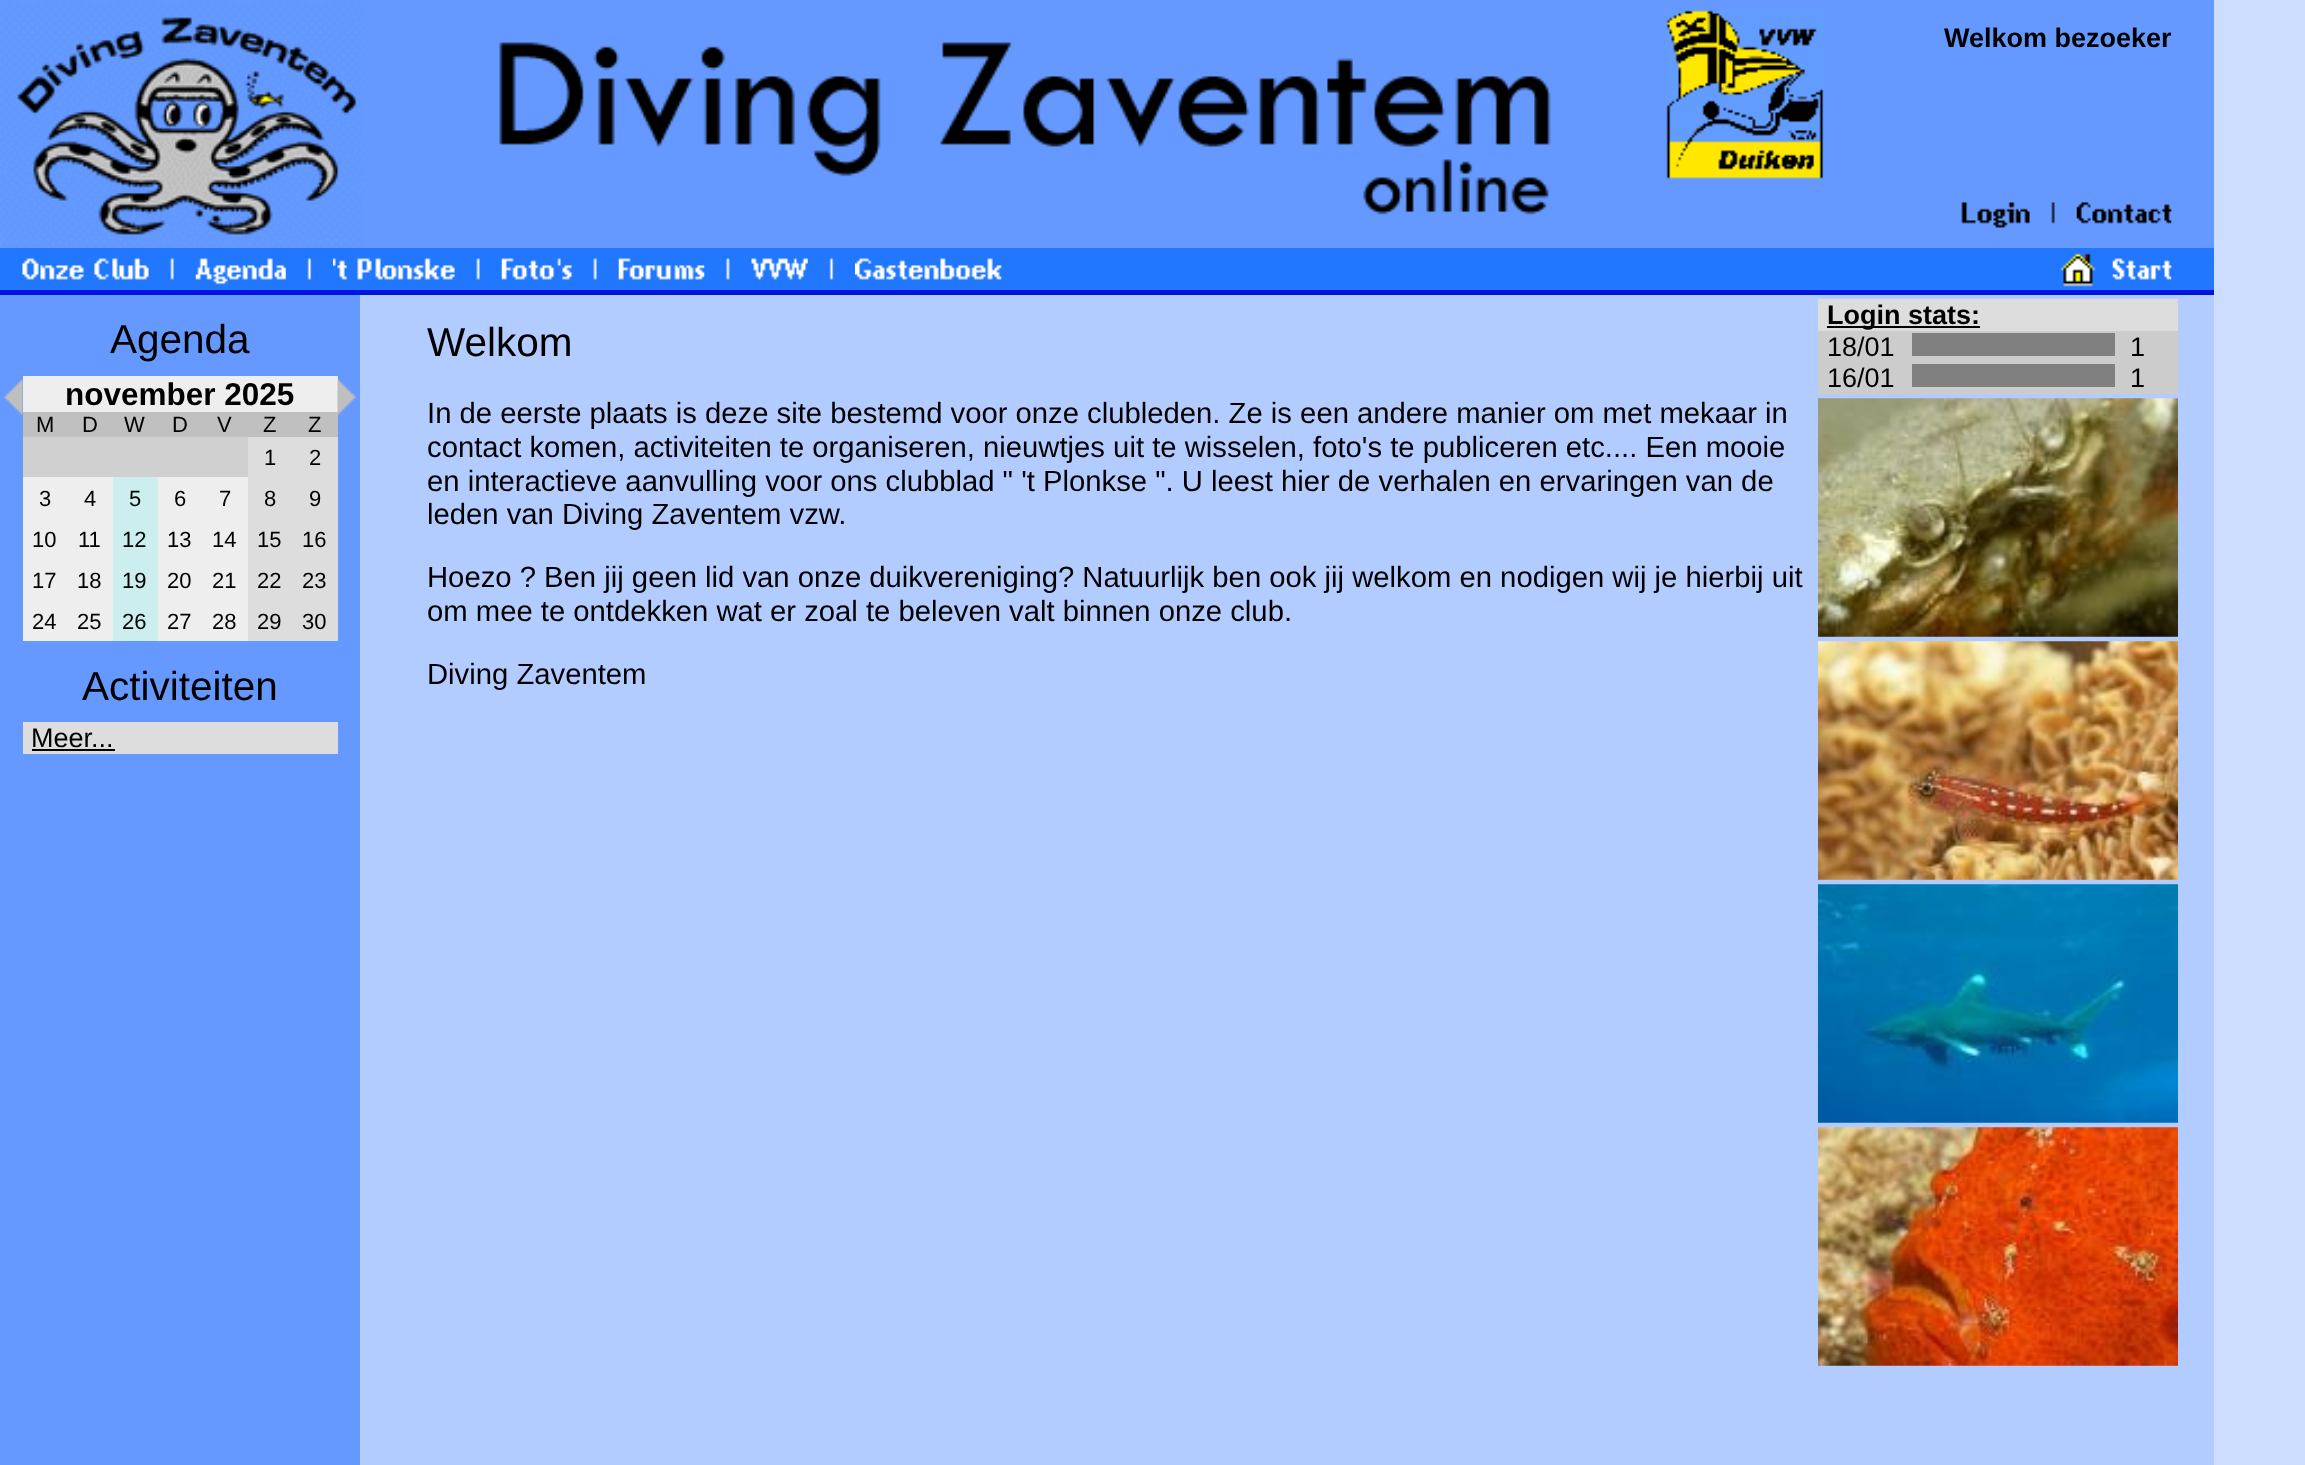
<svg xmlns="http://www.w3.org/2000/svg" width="2305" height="1465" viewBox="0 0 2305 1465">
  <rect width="100%" height="100%" fill="rgb(204,221,255)"/>
  <rect x="0" y="0" width="2214" height="248" fill="rgb(102,153,255)"/>
  <image x="0" y="3" width="364" height="244" href="pic1.png"/>
  <image x="1666" y="10" width="158" height="169" href="pic2.png"/>
  <text x="1944" y="47" font-family="Liberation Sans" font-size="27" font-weight="bold" fill="rgb(0,0,0)">Welkom bezoeker</text>
  <image x="1961" y="202" width="69" height="26" href="pic3.png"/>
  <image x="2051" y="202" width="4" height="22" href="pic4.png"/>
  <image x="2076" y="202" width="96" height="22" href="pic5.png"/>
  <image x="499" y="42" width="1052" height="173" href="pic6.png"/>
  <rect x="0" y="248" width="2214" height="42" fill="rgb(34,119,255)"/>
  <image x="22" y="258" width="127" height="22" href="pic7.png"/>
  <image x="170" y="258" width="4" height="22" href="pic8.png"/>
  <image x="195" y="258" width="91" height="27" href="pic9.png"/>
  <image x="307" y="258" width="5" height="22" href="pic10.png"/>
  <image x="333" y="258" width="122" height="22" href="pic11.png"/>
  <image x="476" y="258" width="4" height="22" href="pic8.png"/>
  <image x="501" y="258" width="71" height="22" href="pic12.png"/>
  <image x="593" y="258" width="4" height="22" href="pic8.png"/>
  <image x="618" y="258" width="87" height="22" href="pic13.png"/>
  <image x="726" y="258" width="4" height="22" href="pic14.png"/>
  <image x="751" y="258" width="57" height="22" href="pic15.png"/>
  <image x="829" y="258" width="5" height="22" href="pic10.png"/>
  <image x="855" y="258" width="147" height="22" href="pic16.png"/>
  <image x="2060" y="253" width="36" height="34" href="pic17.png"/>
  <image x="2112" y="258" width="60" height="22" href="pic18.png"/>
  <rect x="0" y="290" width="2214" height="5" fill="rgb(0,20,224)"/>
  <rect x="0" y="295" width="360" height="1170" fill="rgb(102,153,255)"/>
  <text x="110" y="353" font-family="Liberation Sans" font-size="40.5" fill="rgb(0,0,0)">Agenda</text>
  <image x="4" y="379" width="19" height="36" href="pic19.png"/>
  <rect x="23" y="376" width="315" height="36" fill="rgb(238,238,238)"/>
  <text x="65" y="405" font-family="Liberation Sans" font-size="31.5" font-weight="bold" fill="rgb(0,0,0)">november 2025</text>
  <rect x="23" y="412" width="315" height="25" fill="rgb(192,192,192)"/>
  <g font-family="Liberation Sans" font-size="22" fill="rgb(0,0,0)">
    <text x="36" y="432">M</text>
    <text x="82" y="432">D</text>
    <text x="124" y="432">W</text>
    <text x="172" y="432">D</text>
    <text x="217" y="432">V</text>
    <text x="263" y="432">Z</text>
    <text x="308" y="432">Z</text>
  </g>
  <rect x="23" y="437" width="225" height="40" fill="rgb(208,208,208)"/>
  <rect x="248" y="437" width="90" height="40" fill="rgb(221,221,221)"/>
  <g font-family="Liberation Sans" font-size="22" fill="rgb(0,0,0)">
    <text x="264" y="465">1</text>
    <text x="309" y="465">2</text>
  </g>
  <rect x="23" y="477" width="90" height="41" fill="rgb(238,238,238)"/>
  <g font-family="Liberation Sans" font-size="22" fill="rgb(0,0,0)">
    <text x="39" y="506">3</text>
    <text x="84" y="506">4</text>
  </g>
  <rect x="113" y="477" width="45" height="164" fill="rgb(204,238,238)"/>
  <text x="129" y="506" font-family="Liberation Sans" font-size="22" fill="rgb(0,0,0)">5</text>
  <rect x="158" y="477" width="90" height="41" fill="rgb(238,238,238)"/>
  <g font-family="Liberation Sans" font-size="22" fill="rgb(0,0,0)">
    <text x="174" y="506">6</text>
    <text x="219" y="506">7</text>
  </g>
  <rect x="248" y="477" width="90" height="41" fill="rgb(221,221,221)"/>
  <g font-family="Liberation Sans" font-size="22" fill="rgb(0,0,0)">
    <text x="264" y="506">8</text>
    <text x="309" y="506">9</text>
  </g>
  <rect x="23" y="518" width="90" height="42" fill="rgb(238,238,238)"/>
  <g font-family="Liberation Sans" font-size="22" fill="rgb(0,0,0)">
    <text x="32" y="547">10</text>
    <text x="78" y="547">11</text>
    <text x="122" y="547">12</text>
  </g>
  <rect x="158" y="518" width="90" height="42" fill="rgb(238,238,238)"/>
  <g font-family="Liberation Sans" font-size="22" fill="rgb(0,0,0)">
    <text x="167" y="547">13</text>
    <text x="212" y="547">14</text>
  </g>
  <rect x="248" y="518" width="90" height="42" fill="rgb(221,221,221)"/>
  <g font-family="Liberation Sans" font-size="22" fill="rgb(0,0,0)">
    <text x="257" y="547">15</text>
    <text x="302" y="547">16</text>
  </g>
  <rect x="23" y="560" width="90" height="41" fill="rgb(238,238,238)"/>
  <g font-family="Liberation Sans" font-size="22" fill="rgb(0,0,0)">
    <text x="32" y="588">17</text>
    <text x="77" y="588">18</text>
    <text x="122" y="588">19</text>
  </g>
  <rect x="158" y="560" width="90" height="41" fill="rgb(238,238,238)"/>
  <g font-family="Liberation Sans" font-size="22" fill="rgb(0,0,0)">
    <text x="167" y="588">20</text>
    <text x="212" y="588">21</text>
  </g>
  <rect x="248" y="560" width="90" height="41" fill="rgb(221,221,221)"/>
  <g font-family="Liberation Sans" font-size="22" fill="rgb(0,0,0)">
    <text x="257" y="588">22</text>
    <text x="302" y="588">23</text>
  </g>
  <rect x="23" y="601" width="90" height="40" fill="rgb(238,238,238)"/>
  <g font-family="Liberation Sans" font-size="22" fill="rgb(0,0,0)">
    <text x="32" y="629">24</text>
    <text x="77" y="629">25</text>
    <text x="122" y="629">26</text>
  </g>
  <rect x="158" y="601" width="90" height="40" fill="rgb(238,238,238)"/>
  <g font-family="Liberation Sans" font-size="22" fill="rgb(0,0,0)">
    <text x="167" y="629">27</text>
    <text x="212" y="629">28</text>
  </g>
  <rect x="248" y="601" width="90" height="40" fill="rgb(221,221,221)"/>
  <g font-family="Liberation Sans" font-size="22" fill="rgb(0,0,0)">
    <text x="257" y="629">29</text>
    <text x="302" y="629">30</text>
  </g>
  <image x="337" y="379" width="20" height="36" href="pic20.png"/>
  <text x="82" y="700" font-family="Liberation Sans" font-size="40.5" fill="rgb(0,0,0)">Activiteiten</text>
  <rect x="23" y="722" width="315" height="32" fill="rgb(221,221,221)"/>
  <text x="31" y="747" font-family="Liberation Sans" font-size="27" fill="rgb(0,0,0)">Meer...</text>
  <rect x="32" y="749" width="83" height="2" fill="rgb(0,0,0)"/>
  <rect x="360" y="295" width="1854" height="1170" fill="rgb(179,204,255)"/>
  <text x="427" y="356" font-family="Liberation Sans" font-size="40.5" fill="rgb(0,0,0)">Welkom</text>
  <rect x="1818" y="299" width="360" height="32" fill="rgb(221,221,221)"/>
  <rect x="1827" y="326" width="153" height="2" fill="rgb(0,0,0)"/>
  <text x="1827" y="324" font-family="Liberation Sans" font-size="27" font-weight="bold" fill="rgb(0,0,0)">Login stats:</text>
  <rect x="1818" y="331" width="360" height="31" fill="rgb(204,204,204)"/>
  <text x="1827" y="356" font-family="Liberation Sans" font-size="27" fill="rgb(0,0,0)">18/01</text>
  <rect x="1912" y="333" width="203" height="23" fill="rgb(128,128,128)"/>
  <text x="2130" y="356" font-family="Liberation Sans" font-size="27" fill="rgb(0,0,0)">1</text>
  <rect x="1818" y="362" width="360" height="32" fill="rgb(204,204,204)"/>
  <text x="1827" y="387" font-family="Liberation Sans" font-size="27" fill="rgb(0,0,0)">16/01</text>
  <rect x="1912" y="364" width="203" height="23" fill="rgb(128,128,128)"/>
  <text x="2130" y="387" font-family="Liberation Sans" font-size="27" fill="rgb(0,0,0)">1</text>
  <image x="1818" y="398" width="360" height="239" href="pic21.png"/>
  <image x="1818" y="641" width="360" height="239" href="pic22.png"/>
  <image x="1818" y="884" width="360" height="239" href="pic23.png"/>
  <image x="1818" y="1127" width="360" height="239" href="pic24.png"/>
  <g font-family="Liberation Sans" font-size="29.25" fill="rgb(0,0,0)">
    <text>
      <tspan x="427" y="423">In de eerste plaats is deze site bestemd voor onze clubleden. Ze is een andere manier om met mekaar in</tspan>
      <tspan x="427" y="457">contact komen, activiteiten te organiseren, nieuwtjes uit te wisselen, foto's te publiceren etc.... Een mooie</tspan>
      <tspan x="427" y="491">en interactieve aanvulling voor ons clubblad " 't Plonkse ". U leest hier de verhalen en ervaringen van de</tspan>
      <tspan x="427" y="524">leden van Diving Zaventem vzw.</tspan>
    </text>
    <text>
      <tspan x="427" y="587">Hoezo ? Ben jij geen lid van onze duikvereniging? Natuurlijk ben ook jij welkom en nodigen wij je hierbij uit</tspan>
      <tspan x="427" y="621">om mee te ontdekken wat er zoal te beleven valt binnen onze club.</tspan>
    </text>
    <text x="427" y="684">Diving Zaventem</text>
  </g>
</svg>
